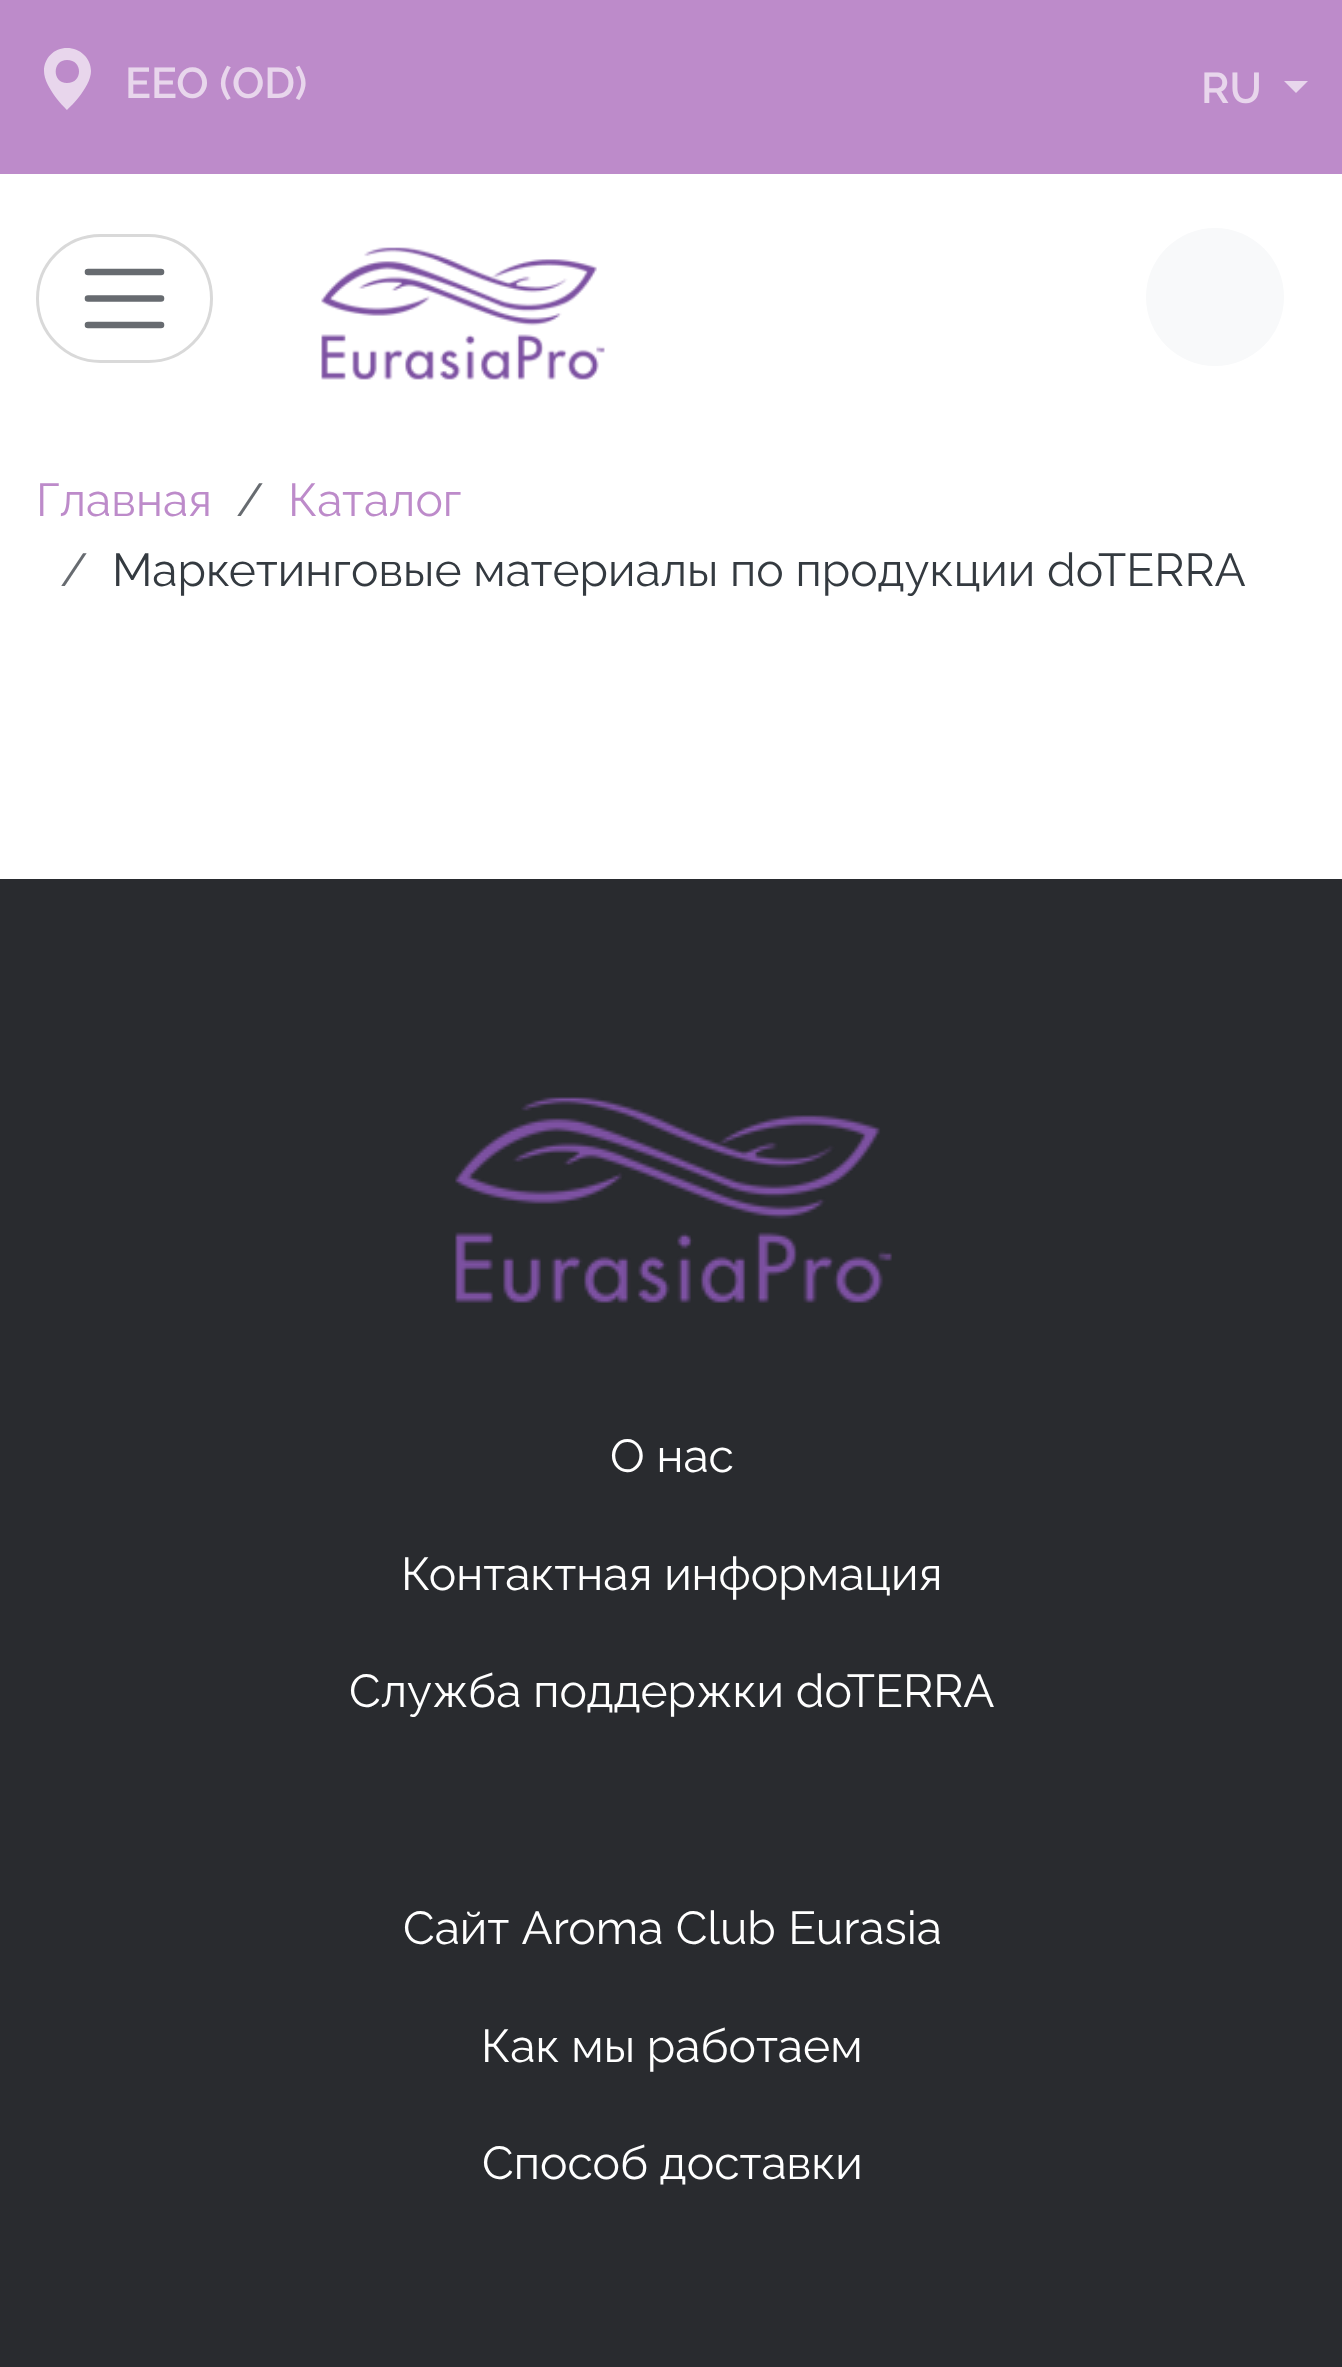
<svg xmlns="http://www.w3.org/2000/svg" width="1342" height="2367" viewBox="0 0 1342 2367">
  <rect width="100%" height="100%" fill="rgb(255,255,255)"/>
  <rect x="0" y="0" width="1342" height="174" fill="rgb(189,139,202)"/>
  <path d="M67 110C67 110 91 88 91 71C91 58 80 48 67 48C54 48 44 58 44 71C44 88 67 110 67 110ZM67 83C52 83 52 60 67 60C83 60 83 83 67 83Z" fill="rgb(232,214,236)"/>
  <g font-family="Raleway" font-size="43" font-weight="600" fill="rgb(232,214,236)">
    <text x="125" y="98">EEO (ОD)</text>
    <text x="1201" y="103">RU</text>
  </g>
  <path d="M1284 81H1308L1296 93Z" fill="rgb(232,214,236)"/>
  <rect x="37.5" y="235.5" width="174" height="126" rx="63" fill="none" stroke="rgb(217,217,217)" stroke-width="3"/>
  <path d="M88 272H161M88 298.5H161M88 325H161" fill="none" stroke="rgb(103,107,112)" stroke-width="6.6" stroke-linecap="round"/>
  <image x="321" y="247" width="284" height="133" href="pic1.png"/>
  <circle cx="1215" cy="297" r="69" fill="rgb(248,249,250)"/>
  <text x="36" y="516" font-family="Raleway" font-size="46.2" fill="rgb(189,139,202)">Главная</text>
  <text x="236" y="516" font-family="Raleway" font-size="46.2" fill="rgb(103,107,112)">/</text>
  <text x="288" y="516" font-family="Raleway" font-size="46.2" fill="rgb(189,139,202)">Каталог</text>
  <text x="60" y="586" font-family="Raleway" font-size="46.2" fill="rgb(103,107,112)">/</text>
  <text x="112" y="586" font-family="Raleway" font-size="46.2" fill="rgb(52,58,64)">Маркетинговые материалы по продукции doTERRA</text>
  <rect x="0" y="879" width="1342" height="1488" fill="rgb(41,43,47)"/>
  <image x="455" y="1097" width="437" height="206" href="pic2.png"/>
  <g font-family="Raleway" font-size="46.2" fill="rgb(255,255,255)">
    <text x="610" y="1472">О нас</text>
    <text x="401" y="1590">Контактная информация</text>
    <text x="349" y="1707">Служба поддержки doTERRA</text>
    <text x="403" y="1944" word-spacing="0.5">Сайт Aroma Club Eurasia</text>
    <text x="481" y="2062">Как мы работаем</text>
    <text x="482" y="2179">Способ доставки</text>
  </g>
</svg>
